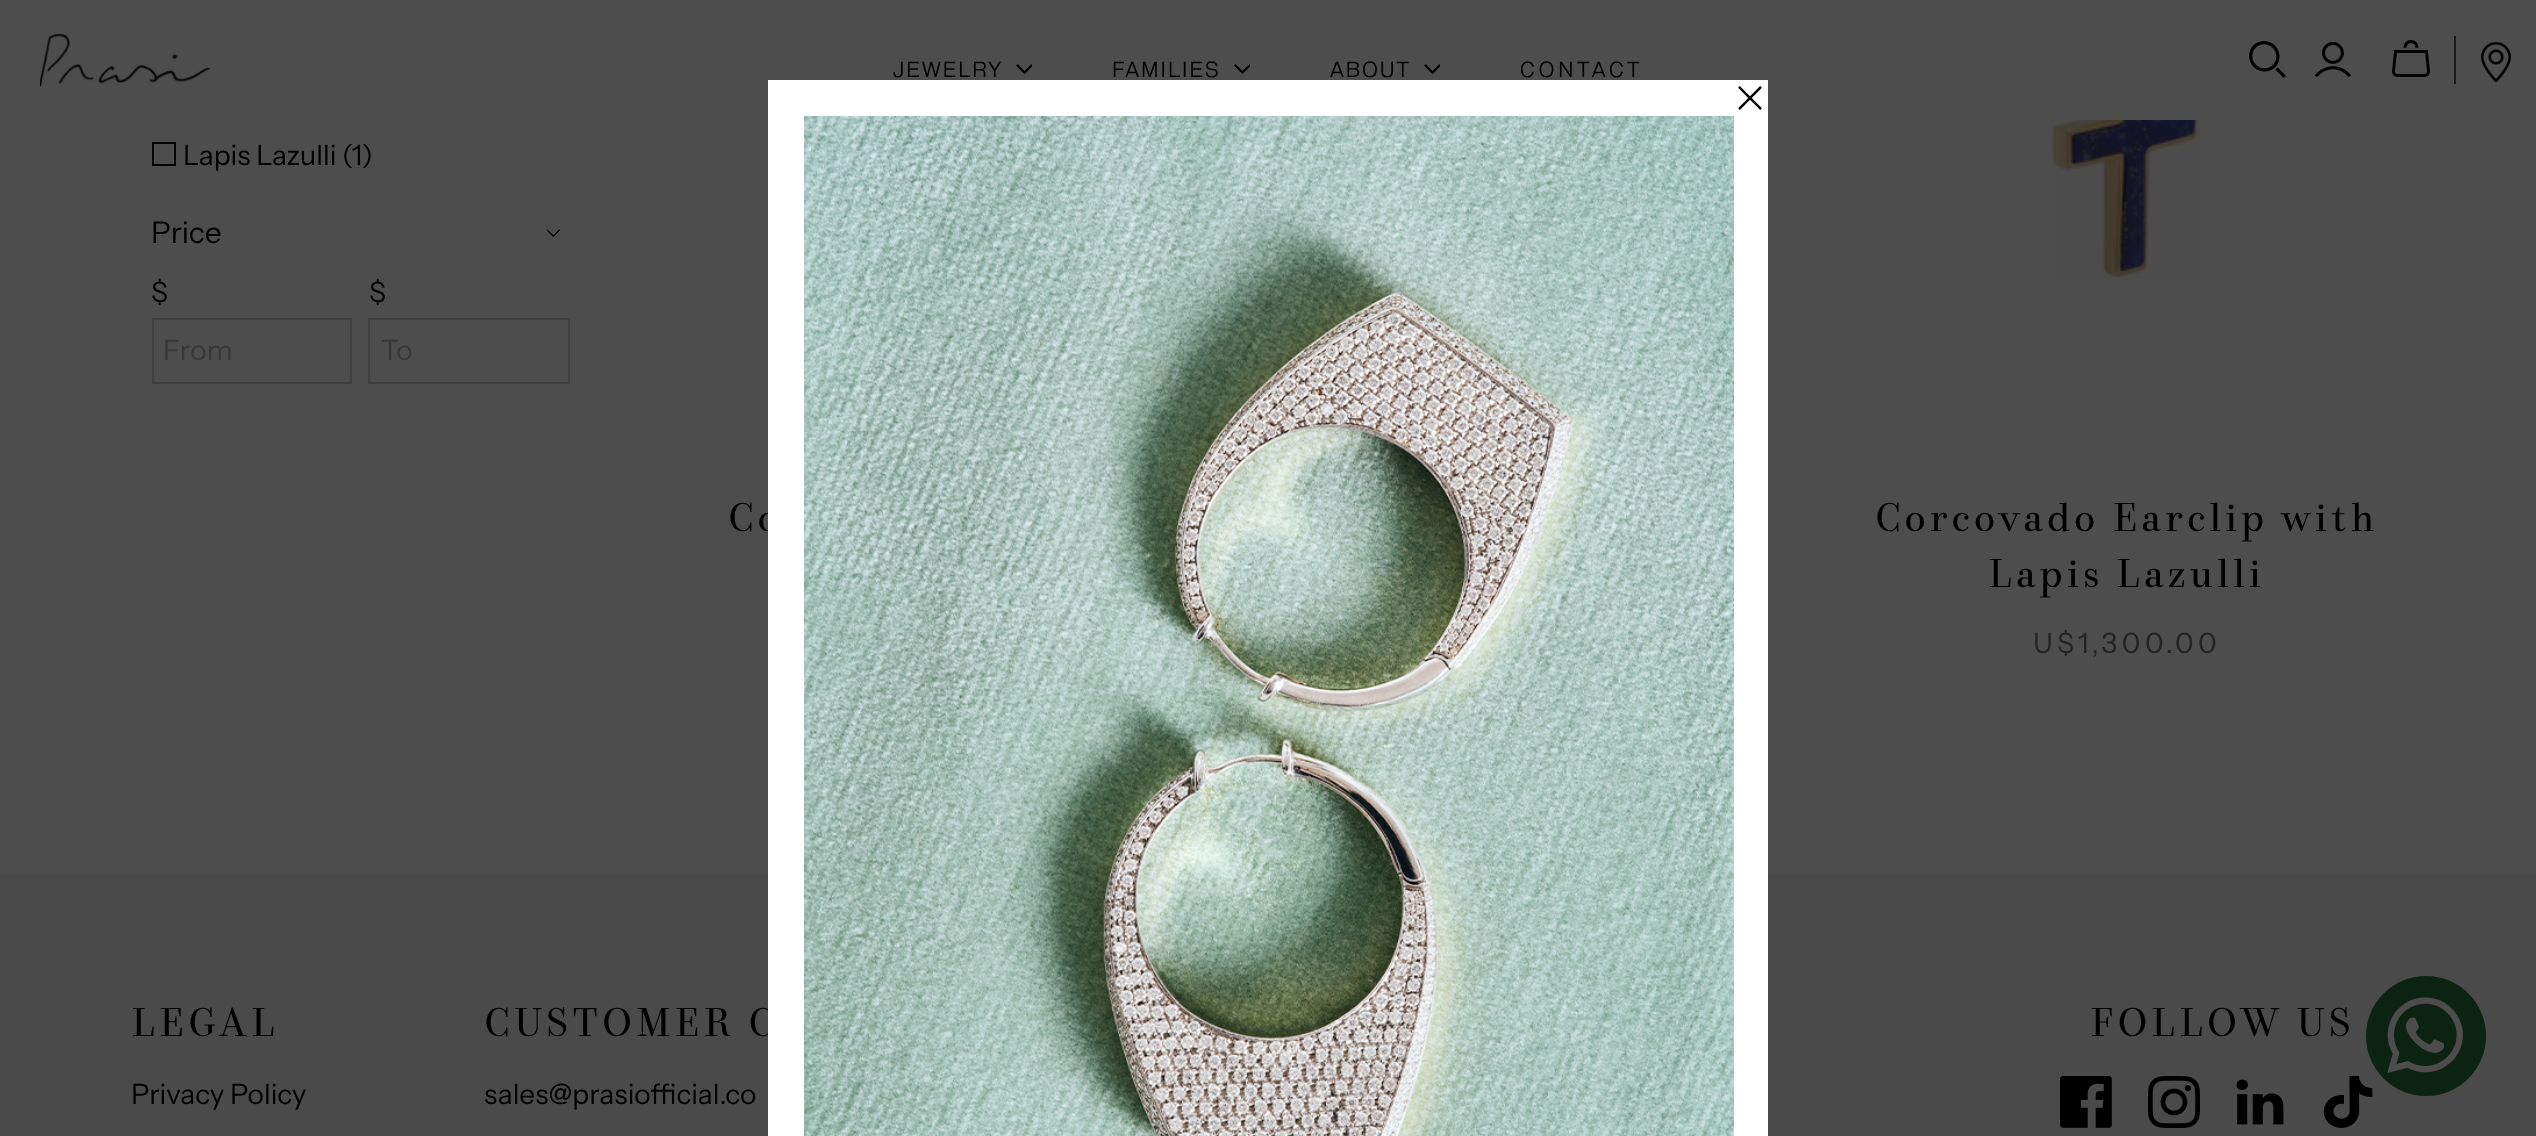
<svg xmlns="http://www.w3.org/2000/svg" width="2536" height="1136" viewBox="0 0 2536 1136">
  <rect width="100%" height="100%" fill="rgb(77,77,77)"/>
  <image x="40" y="33" width="170" height="54" href="pic1.png"/>
  <text x="893" y="77" font-family="'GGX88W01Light'" font-size="22" font-weight="300" letter-spacing="2" fill="rgb(0,0,0)">JEWELRY</text>
  <image x="1016" y="64" width="16" height="10" href="pic2.png"/>
  <text x="1112" y="77" font-family="'GGX88W01Light'" font-size="22" font-weight="300" letter-spacing="2" fill="rgb(0,0,0)">FAMILIES</text>
  <image x="1234" y="64" width="16" height="10" href="pic2.png"/>
  <text x="1330" y="77" font-family="'GGX88W01Light'" font-size="22" font-weight="300" letter-spacing="2" fill="rgb(0,0,0)">ABOUT</text>
  <image x="1424" y="64" width="16" height="10" href="pic2.png"/>
  <text x="1520" y="77" font-family="'GGX88W01Light'" font-size="22" font-weight="300" letter-spacing="4" fill="rgb(0,0,0)">CONTACT</text>
  <image x="2249" y="41" width="37" height="37" href="pic3.png"/>
  <image x="2314" y="42" width="37" height="35" href="pic4.png"/>
  <image x="2392" y="40" width="38" height="37" href="pic5.png"/>
  <rect x="2454" y="36" width="2" height="48" fill="rgb(23,26,25)"/>
  <image x="2481" y="42" width="30" height="40" href="pic6.png"/>
  <text x="728" y="531" font-family="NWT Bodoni" font-size="40" letter-spacing="4" fill="rgb(0,0,0)">Co</text>
  <rect x="0" y="874" width="2536" height="262" fill="rgb(74,74,74)"/>
  <text x="484" y="1036" font-family="NWT Bodoni" font-size="40" letter-spacing="4" fill="rgb(0,0,0)">CUSTOMER C</text>
  <image x="768" y="80" width="1000" height="1056" href="pic7.png"/>
  <rect x="153" y="143" width="22" height="22" fill="none" stroke="rgb(0,0,0)" stroke-width="2"/>
  <text x="183" y="165" font-family="Instrument Sans" font-size="28" fill="rgb(0,0,0)">Lapis Lazulli (1)</text>
  <text x="151" y="243" font-family="Instrument Sans" font-size="30" fill="rgb(0,0,0)">Price</text>
  <image x="547" y="229" width="14" height="8" href="pic8.png"/>
  <text x="151" y="302" font-family="Instrument Sans" font-size="28" fill="rgb(0,0,0)">$</text>
  <rect x="153" y="319" width="198" height="64" fill="none" stroke="rgb(64,64,64)" stroke-width="2"/>
  <text x="163" y="360" font-family="Instrument Sans" font-size="28" fill="rgb(56,56,56)">From</text>
  <text x="369" y="302" font-family="Instrument Sans" font-size="28" fill="rgb(0,0,0)">$</text>
  <rect x="369" y="319" width="200" height="64" fill="none" stroke="rgb(64,64,64)" stroke-width="2"/>
  <text x="381" y="360" font-family="Instrument Sans" font-size="28" fill="rgb(56,56,56)">To</text>
  <image x="2051" y="120" width="150" height="160" href="pic9.png"/>
  <g font-family="NWT Bodoni" font-size="40" letter-spacing="4" fill="rgb(0,0,0)">
    <text x="1875" y="531">Corcovado Earclip with</text>
    <text x="1988" y="587">Lapis Lazulli</text>
  </g>
  <text x="2033" y="653" font-family="Instrument Sans" font-size="28" letter-spacing="4" fill="rgb(35,35,35)">U$1,300.00</text>
  <text x="131" y="1036" font-family="NWT Bodoni" font-size="40" letter-spacing="4" fill="rgb(0,0,0)">LEGAL</text>
  <g font-family="Instrument Sans" font-size="28" fill="rgb(0,0,0)">
    <text x="131" y="1104">Privacy Policy</text>
    <text x="484" y="1104">sales@prasiofficial.co</text>
  </g>
  <text x="2090" y="1036" font-family="NWT Bodoni" font-size="40" letter-spacing="4" fill="rgb(0,0,0)">FOLLOW US</text>
  <image x="2060" y="1076" width="52" height="52" href="pic10.png"/>
  <image x="2148" y="1076" width="52" height="52" href="pic11.png"/>
  <image x="2236" y="1079" width="48" height="46" href="pic12.png"/>
  <image x="2323" y="1076" width="50" height="52" href="pic13.png"/>
  <circle cx="2426" cy="1036" r="60" fill="rgb(12,35,19)"/>
  <image x="2387" y="997" width="76" height="76" href="pic14.png"/>
</svg>
